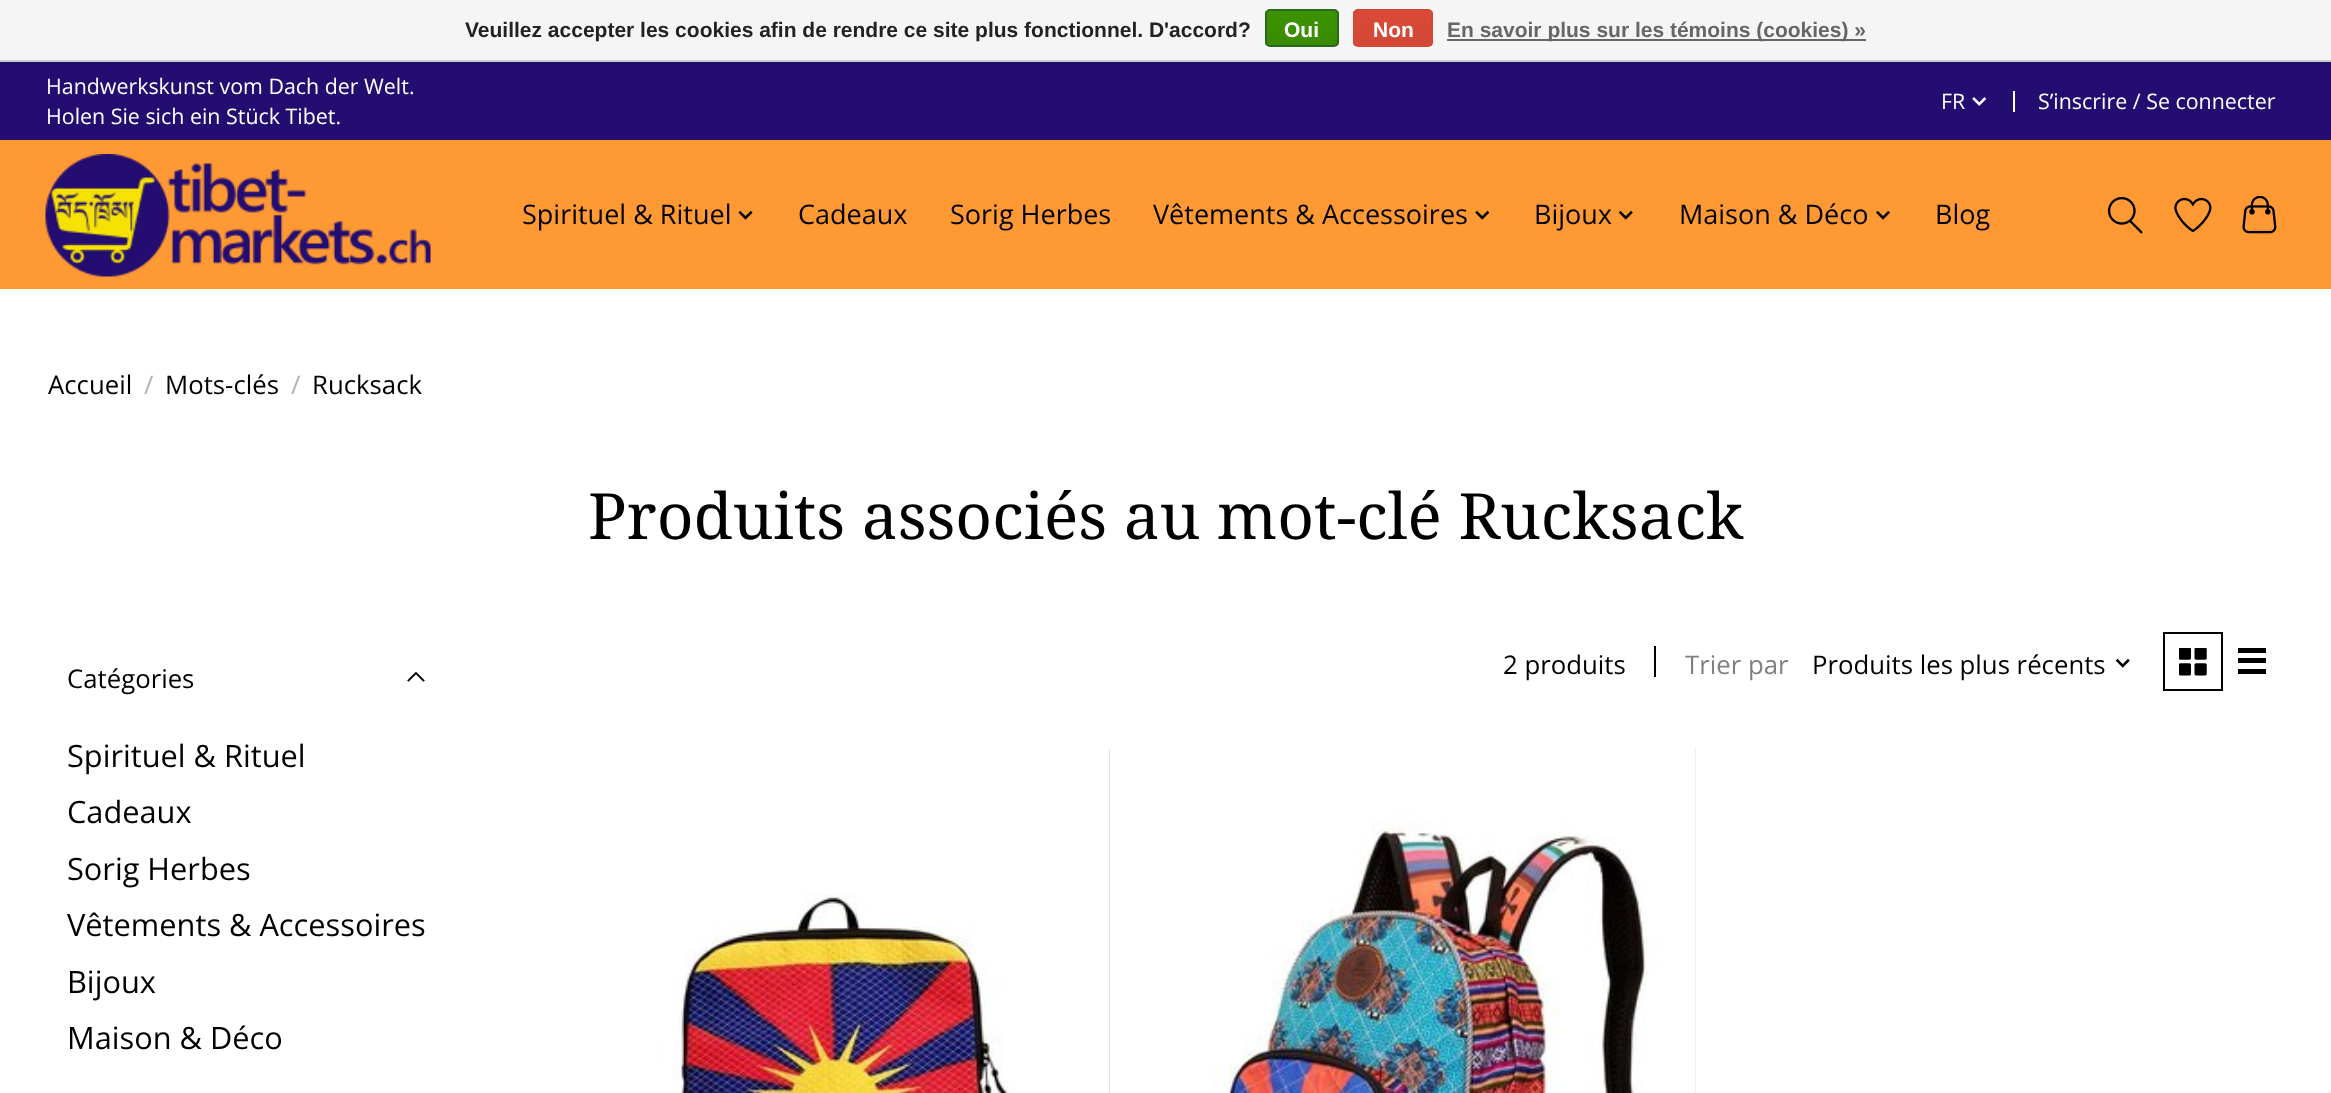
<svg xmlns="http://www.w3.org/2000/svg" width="2331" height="1093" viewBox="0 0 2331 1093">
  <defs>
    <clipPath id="clip1"><rect x="1265" y="9" width="74" height="38" rx="5"/></clipPath>
    <linearGradient id="g1" gradientUnits="userSpaceOnUse" x1="1302" y1="10" x2="1302" y2="46"><stop offset="0" stop-color="rgb(60,147,0)"/><stop offset="1" stop-color="rgb(57,138,0)"/></linearGradient>
    <clipPath id="clip2"><rect x="1353" y="9" width="80" height="38" rx="5"/></clipPath>
    <linearGradient id="g2" gradientUnits="userSpaceOnUse" x1="1393" y1="10" x2="1393" y2="46"><stop offset="0" stop-color="rgb(220,74,56)"/><stop offset="1" stop-color="rgb(209,72,54)"/></linearGradient>
  </defs>
  <rect width="100%" height="100%" fill="rgb(255,255,255)"/>
  <rect x="0" y="0" width="2331" height="60" fill="rgb(245,245,245)"/>
  <rect x="0" y="60" width="2331" height="2" fill="rgb(204,204,204)"/>
  <text x="465" y="37" font-family="Liberation Sans" font-size="21" font-weight="bold" fill="rgb(34,34,34)">Veuillez accepter les cookies afin de rendre ce site plus fonctionnel. D'accord?</text>
  <g clip-path="url(#clip1)">
    <rect x="1265" y="11" width="74" height="35" fill="url(#g1)"/>
  </g>
  <rect x="1266" y="10" width="72" height="36" rx="4" fill="none" stroke="rgb(41,105,29)" stroke-width="2"/>
  <text x="1284" y="37" font-family="Liberation Sans" font-size="21" font-weight="bold" fill="rgb(255,255,255)">Oui</text>
  <g clip-path="url(#clip2)">
    <rect x="1353" y="11" width="80" height="35" fill="url(#g2)"/>
  </g>
  <rect x="1354" y="10" width="78" height="36" rx="4" fill="none" stroke="rgb(209,72,54)" stroke-width="2"/>
  <text x="1373" y="37" font-family="Liberation Sans" font-size="21" font-weight="bold" fill="rgb(255,255,255)">Non</text>
  <rect x="1447" y="39" width="419" height="2" fill="rgb(102,102,102)"/>
  <text x="1447" y="37" font-family="Liberation Sans" font-size="21" font-weight="bold" fill="rgb(102,102,102)">En savoir plus sur les témoins (cookies) »</text>
  <rect x="0" y="140" width="2331" height="149" fill="rgb(255,153,51)"/>
  <rect x="0" y="62" width="2331" height="78" fill="rgb(36,13,112)"/>
  <g font-family="Open Sans" font-size="21.4" fill="rgb(255,255,255)">
    <text>
      <tspan x="46" y="94">Handwerkskunst vom Dach der Welt.</tspan>
      <tspan x="46" y="124">Holen Sie sich ein Stück Tibet.</tspan>
    </text>
    <text x="1941" y="109">FR</text>
  </g>
  <image x="1972" y="97" width="15" height="9" href="pic1.png"/>
  <rect x="2013" y="91" width="2" height="21" fill="rgb(255,255,255)"/>
  <text x="2038" y="109" font-family="Open Sans" font-size="21.4" fill="rgb(255,255,255)">S’inscrire / Se connecter</text>
  <image x="45" y="154" width="386" height="123" href="pic2.png"/>
  <text x="522" y="224" font-family="Open Sans" font-size="27" fill="rgb(0,0,0)">Spirituel &amp; Rituel</text>
  <image x="738" y="210" width="15" height="10" href="pic3.png"/>
  <g font-family="Open Sans" font-size="27" fill="rgb(0,0,0)">
    <text x="798" y="224">Cadeaux</text>
    <text x="950" y="224">Sorig Herbes</text>
    <text x="1153" y="224">Vêtements &amp; Accessoires</text>
  </g>
  <image x="1475" y="210" width="15" height="10" href="pic4.png"/>
  <text x="1534" y="224" font-family="Open Sans" font-size="27" fill="rgb(0,0,0)">Bijoux</text>
  <image x="1618" y="210" width="15" height="10" href="pic5.png"/>
  <text x="1679" y="224" font-family="Open Sans" font-size="27" fill="rgb(0,0,0)">Maison &amp; Déco</text>
  <image x="1876" y="210" width="14" height="10" href="pic6.png"/>
  <text x="1935" y="224" font-family="Open Sans" font-size="27" fill="rgb(0,0,0)">Blog</text>
  <image x="2107" y="196" width="36" height="38" href="pic7.png"/>
  <image x="2174" y="197" width="38" height="36" href="pic8.png"/>
  <image x="2242" y="196" width="35" height="38" href="pic9.png"/>
  <text x="48" y="394" font-family="Open Sans" font-size="25.75" fill="rgb(0,0,0)">Accueil</text>
  <text x="144" y="394" font-family="Open Sans" font-size="25.75" fill="rgb(179,179,179)">/</text>
  <text x="165" y="394" font-family="Open Sans" font-size="25.75" fill="rgb(0,0,0)">Mots-clés</text>
  <text x="291" y="394" font-family="Open Sans" font-size="25.75" fill="rgb(179,179,179)">/</text>
  <text x="312" y="394" font-family="Open Sans" font-size="25.75" fill="rgb(0,0,0)">Rucksack</text>
  <text x="588" y="539" font-family="Noto Serif" font-size="63.9" fill="rgb(0,0,0)">Produits associés au mot-clé Rucksack</text>
  <text x="67" y="688" font-family="Open Sans" font-size="25.75" fill="rgb(0,0,0)">Catégories</text>
  <path d="M408.5 680.5L416 673M423.5 680.5L416 673" fill="none" stroke="rgb(0,0,0)" stroke-width="1.9" stroke-linecap="square"/>
  <g font-family="Open Sans" font-size="30.75" fill="rgb(0,0,0)">
    <text>
      <tspan x="67" y="767">Spirituel &amp; Rituel</tspan>
      <tspan x="67" y="823">Cadeaux</tspan>
      <tspan x="67" y="880">Sorig Herbes</tspan>
      <tspan x="67" y="936">Vêtements &amp; Accessoires</tspan>
      <tspan x="67" y="993">Bijoux</tspan>
      <tspan x="67" y="1049">Maison &amp; Déco</tspan>
    </text>
  </g>
  <text x="1503" y="674" font-family="Open Sans" font-size="25.75" fill="rgb(0,0,0)">2 produits</text>
  <rect x="1654" y="646" width="2" height="31" fill="rgb(0,0,0)"/>
  <text x="1685" y="674" font-family="Open Sans" font-size="25.75" fill="rgb(128,128,128)">Trier par</text>
  <text x="1812" y="674" font-family="Open Sans" font-size="25.75" fill="rgb(0,0,0)">Produits les plus récents</text>
  <image x="2115" y="658" width="15" height="10" href="pic10.png"/>
  <rect x="2164" y="633" width="58" height="57" fill="none" stroke="rgb(0,0,0)" stroke-width="2"/>
  <image x="2179" y="648" width="28" height="28" href="pic11.png"/>
  <rect x="2238" y="648" width="28" height="5" fill="rgb(0,0,0)"/>
  <rect x="2238" y="658" width="28" height="5" fill="rgb(0,0,0)"/>
  <rect x="2238" y="669" width="28" height="5" fill="rgb(0,0,0)"/>
  <rect x="1109" y="749" width="1" height="344" fill="rgb(217,217,217)"/>
  <image x="571" y="749" width="539" height="344" href="pic12.png"/>
  <rect x="1695" y="749" width="1" height="344" fill="rgb(217,217,217)"/>
  <image x="1157" y="749" width="539" height="344" href="pic13.png"/>
  <rect x="2328" y="1090" width="3" height="3" fill="rgb(245,245,245)"/>
</svg>
